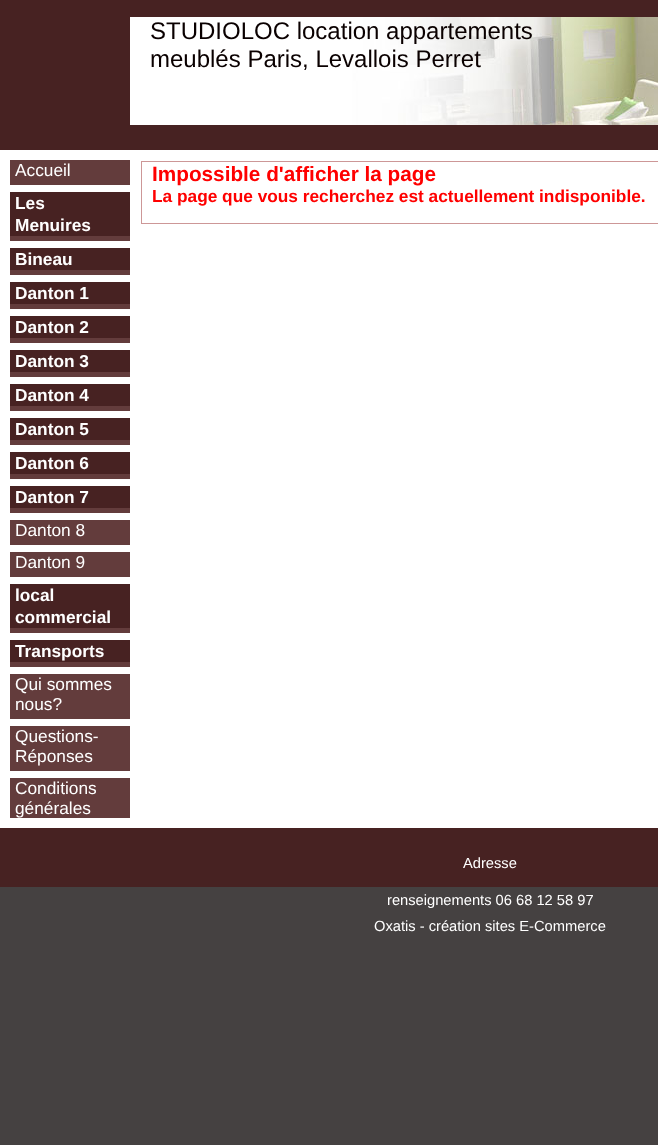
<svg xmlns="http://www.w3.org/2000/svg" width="658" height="1145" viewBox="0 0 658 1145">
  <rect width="100%" height="100%" fill="rgb(69,65,65)"/>
  <rect x="0" y="150" width="658" height="678" fill="rgb(255,255,255)"/>
  <rect x="0" y="0" width="658" height="150" fill="rgb(71,34,34)"/>
  <image x="130" y="17" width="528" height="108" href="pic1.png"/>
  <g font-family="Liberation Sans" font-size="24" fill="rgb(10,0,0)">
    <text>
      <tspan x="150" y="39">STUDIOLOC location appartements</tspan>
      <tspan x="150" y="67">meublés Paris, Levallois Perret</tspan>
    </text>
  </g>
  <rect x="10" y="160" width="120" height="658" fill="rgb(99,60,60)"/>
  <text x="15" y="176" font-family="Liberation Sans" font-size="17.3" fill="rgb(255,255,255)">Accueil</text>
  <rect x="10" y="185" width="120" height="7" fill="rgb(255,255,255)"/>
  <rect x="10" y="192" width="120" height="44" fill="rgb(71,34,34)"/>
  <g font-family="Liberation Sans" font-size="17.3" font-weight="bold" fill="rgb(255,255,255)">
    <text>
      <tspan x="15" y="209">Les</tspan>
      <tspan x="15" y="231">Menuires</tspan>
    </text>
  </g>
  <rect x="10" y="241" width="120" height="7" fill="rgb(255,255,255)"/>
  <rect x="10" y="248" width="120" height="22" fill="rgb(71,34,34)"/>
  <text x="15" y="265" font-family="Liberation Sans" font-size="17.3" font-weight="bold" fill="rgb(255,255,255)">Bineau</text>
  <rect x="10" y="275" width="120" height="7" fill="rgb(255,255,255)"/>
  <rect x="10" y="282" width="120" height="22" fill="rgb(71,34,34)"/>
  <text x="15" y="299" font-family="Liberation Sans" font-size="17.3" font-weight="bold" fill="rgb(255,255,255)">Danton 1</text>
  <rect x="10" y="309" width="120" height="7" fill="rgb(255,255,255)"/>
  <rect x="10" y="316" width="120" height="22" fill="rgb(71,34,34)"/>
  <text x="15" y="333" font-family="Liberation Sans" font-size="17.3" font-weight="bold" fill="rgb(255,255,255)">Danton 2</text>
  <rect x="10" y="343" width="120" height="7" fill="rgb(255,255,255)"/>
  <rect x="10" y="350" width="120" height="22" fill="rgb(71,34,34)"/>
  <text x="15" y="367" font-family="Liberation Sans" font-size="17.3" font-weight="bold" fill="rgb(255,255,255)">Danton 3</text>
  <rect x="10" y="377" width="120" height="7" fill="rgb(255,255,255)"/>
  <rect x="10" y="384" width="120" height="22" fill="rgb(71,34,34)"/>
  <text x="15" y="401" font-family="Liberation Sans" font-size="17.3" font-weight="bold" fill="rgb(255,255,255)">Danton 4</text>
  <rect x="10" y="411" width="120" height="7" fill="rgb(255,255,255)"/>
  <rect x="10" y="418" width="120" height="22" fill="rgb(71,34,34)"/>
  <text x="15" y="435" font-family="Liberation Sans" font-size="17.3" font-weight="bold" fill="rgb(255,255,255)">Danton 5</text>
  <rect x="10" y="445" width="120" height="7" fill="rgb(255,255,255)"/>
  <rect x="10" y="452" width="120" height="22" fill="rgb(71,34,34)"/>
  <text x="15" y="469" font-family="Liberation Sans" font-size="17.3" font-weight="bold" fill="rgb(255,255,255)">Danton 6</text>
  <rect x="10" y="479" width="120" height="7" fill="rgb(255,255,255)"/>
  <rect x="10" y="486" width="120" height="22" fill="rgb(71,34,34)"/>
  <text x="15" y="503" font-family="Liberation Sans" font-size="17.3" font-weight="bold" fill="rgb(255,255,255)">Danton 7</text>
  <rect x="10" y="513" width="120" height="7" fill="rgb(255,255,255)"/>
  <text x="15" y="536" font-family="Liberation Sans" font-size="17.3" fill="rgb(255,255,255)">Danton 8</text>
  <rect x="10" y="545" width="120" height="7" fill="rgb(255,255,255)"/>
  <text x="15" y="568" font-family="Liberation Sans" font-size="17.3" fill="rgb(255,255,255)">Danton 9</text>
  <rect x="10" y="577" width="120" height="7" fill="rgb(255,255,255)"/>
  <rect x="10" y="584" width="120" height="44" fill="rgb(71,34,34)"/>
  <g font-family="Liberation Sans" font-size="17.3" font-weight="bold" fill="rgb(255,255,255)">
    <text>
      <tspan x="15" y="601">local</tspan>
      <tspan x="15" y="623">commercial</tspan>
    </text>
  </g>
  <rect x="10" y="633" width="120" height="7" fill="rgb(255,255,255)"/>
  <rect x="10" y="640" width="120" height="22" fill="rgb(71,34,34)"/>
  <text x="15" y="657" font-family="Liberation Sans" font-size="17.3" font-weight="bold" fill="rgb(255,255,255)">Transports</text>
  <rect x="10" y="667" width="120" height="7" fill="rgb(255,255,255)"/>
  <g font-family="Liberation Sans" font-size="17.3" fill="rgb(255,255,255)">
    <text>
      <tspan x="15" y="690">Qui sommes</tspan>
      <tspan x="15" y="710">nous?</tspan>
    </text>
  </g>
  <rect x="10" y="719" width="120" height="7" fill="rgb(255,255,255)"/>
  <g font-family="Liberation Sans" font-size="17.3" fill="rgb(255,255,255)">
    <text>
      <tspan x="15" y="742">Questions-</tspan>
      <tspan x="15" y="762">Réponses</tspan>
    </text>
  </g>
  <rect x="10" y="771" width="120" height="7" fill="rgb(255,255,255)"/>
  <g font-family="Liberation Sans" font-size="17.3" fill="rgb(255,255,255)">
    <text>
      <tspan x="15" y="794">Conditions</tspan>
      <tspan x="15" y="814">générales</tspan>
    </text>
  </g>
  <rect x="141.5" y="161.5" width="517" height="62" fill="none" stroke="rgb(205,151,151)"/>
  <text x="152" y="181" font-family="Liberation Sans" font-size="20.75" font-weight="bold" fill="rgb(255,0,0)">Impossible d'afficher la page</text>
  <text x="152" y="202" font-family="Liberation Sans" font-size="17.3" font-weight="bold" fill="rgb(255,0,0)">La page que vous recherchez est actuellement indisponible.</text>
  <rect x="0" y="828" width="658" height="59" fill="rgb(71,34,34)"/>
  <g font-family="Liberation Sans" font-size="14.7" fill="rgb(255,255,255)">
    <text x="463" y="868">Adresse</text>
    <text x="387" y="905">renseignements 06 68 12 58 97</text>
    <text x="374" y="931">Oxatis - création sites E-Commerce</text>
  </g>
</svg>
